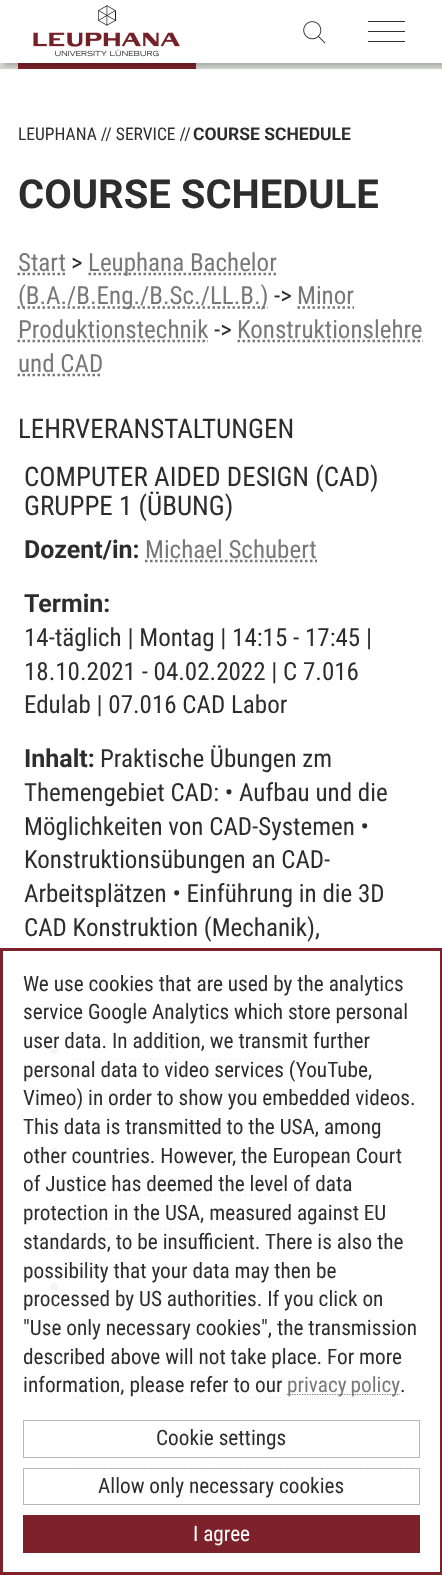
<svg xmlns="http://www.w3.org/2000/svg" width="442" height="1575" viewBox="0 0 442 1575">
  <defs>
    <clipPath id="clip1"><path d="M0 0H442V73H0ZM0-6H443V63H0Z" clip-rule="evenodd"/></clipPath>
  </defs>
  <rect width="100%" height="100%" fill="rgb(212,215,209)"/>
  <rect x="0" y="0" width="442" height="63" fill="rgb(255,255,255)"/>
  <image x="33" y="5" width="147" height="52" href="pic1.png"/>
  <rect x="18" y="63" width="178" height="6" fill="rgb(125,33,42)"/>
  <image x="303" y="21" width="23" height="23" href="pic2.png"/>
  <rect x="368" y="31" width="37" height="1" fill="rgb(45,45,45)"/>
  <rect x="368" y="21" width="37" height="1" fill="rgb(45,45,45)"/>
  <rect x="368" y="41" width="37" height="1" fill="rgb(45,45,45)"/>
  <rect x="0" y="69" width="442" height="879" fill="rgb(255,255,255)"/>
  <g clip-path="url(#clip1)">
    <rect x="4" y="-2" width="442" height="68" fill="rgba(0,0,0,0.2)" filter="blur(2px)"/>
  </g>
  <rect x="3" y="951" width="437" height="621" fill="rgb(255,255,255)"/>
  <text x="18" y="140" font-family="Roboto Condensed" font-size="17.5" fill="rgb(45,45,45)">LEUPHANA // SERVICE //</text>
  <text x="193" y="140" font-family="Roboto" font-size="17.5" font-weight="bold" fill="rgb(45,45,45)">COURSE SCHEDULE</text>
  <text x="18" y="208" font-family="Roboto" font-size="40" font-weight="bold" fill="rgb(45,45,45)">COURSE SCHEDULE</text>
  <text x="18" y="271" font-family="Roboto Condensed" font-size="25" fill="rgb(120,120,120)">Start</text>
  <path d="M17.5 274H65.5" fill="none" stroke="rgb(120,120,120)" stroke-width="2.5" stroke-dasharray="2.5 2.5"/>
  <text x="71" y="271" font-family="Roboto Condensed" font-size="25" fill="rgb(45,45,45)">&gt;</text>
  <path d="M88.5 274H277" fill="none" stroke="rgb(120,120,120)" stroke-width="2.5" stroke-dasharray="2.5 2.5"/>
  <text x="88" y="271" font-family="Roboto Condensed" font-size="25" fill="rgb(120,120,120)">Leuphana Bachelor</text>
  <path d="M17.5 307.5H268" fill="none" stroke="rgb(120,120,120)" stroke-width="2.5" stroke-dasharray="2.5 2.5"/>
  <text x="18" y="304" font-family="Roboto Condensed" font-size="25" fill="rgb(120,120,120)">(B.A./B.Eng./B.Sc./LL.B.)</text>
  <text x="274" y="304" font-family="Roboto Condensed" font-size="25" fill="rgb(45,45,45)">-&gt;</text>
  <text x="297" y="304" font-family="Roboto Condensed" font-size="25" fill="rgb(120,120,120)">Minor</text>
  <path d="M297.5 307.5H354" fill="none" stroke="rgb(120,120,120)" stroke-width="2.5" stroke-dasharray="2.5 2.5"/>
  <text x="18" y="338" font-family="Roboto Condensed" font-size="25" fill="rgb(120,120,120)">Produktionstechnik</text>
  <path d="M17.5 341H208" fill="none" stroke="rgb(120,120,120)" stroke-width="2.5" stroke-dasharray="2.5 2.5"/>
  <text x="214" y="338" font-family="Roboto Condensed" font-size="25" fill="rgb(45,45,45)">-&gt;</text>
  <text x="237" y="338" font-family="Roboto Condensed" font-size="25" fill="rgb(120,120,120)">Konstruktionslehre</text>
  <path d="M237.5 341H423" fill="none" stroke="rgb(120,120,120)" stroke-width="2.5" stroke-dasharray="2.5 2.5"/>
  <text x="18" y="372" font-family="Roboto Condensed" font-size="25" fill="rgb(120,120,120)">und CAD</text>
  <path d="M17.5 375H102.5" fill="none" stroke="rgb(120,120,120)" stroke-width="2.5" stroke-dasharray="2.5 2.5"/>
  <g font-family="Roboto Condensed" font-size="27" fill="rgb(45,45,45)">
    <text x="18" y="438">LEHRVERANSTALTUNGEN</text>
    <text>
      <tspan x="24" y="486">COMPUTER AIDED DESIGN (CAD)</tspan>
      <tspan x="24" y="515">GRUPPE 1 (ÜBUNG)</tspan>
    </text>
  </g>
  <text x="24" y="558" font-family="Roboto" font-size="25" font-weight="bold" fill="rgb(45,45,45)">Dozent/in:</text>
  <text x="145" y="558" font-family="Roboto Condensed" font-size="25" fill="rgb(120,120,120)">Michael Schubert</text>
  <path d="M145 561H317" fill="none" stroke="rgb(120,120,120)" stroke-width="2.5" stroke-dasharray="2.5 2.5"/>
  <text x="24" y="612" font-family="Roboto" font-size="25" font-weight="bold" fill="rgb(45,45,45)">Termin:</text>
  <g font-family="Roboto Condensed" font-size="25" fill="rgb(45,45,45)">
    <text>
      <tspan x="24" y="646">14-täglich | Montag | 14:15 - 17:45 |</tspan>
      <tspan x="24" y="680">18.10.2021 - 04.02.2022 | C 7.016</tspan>
      <tspan x="24" y="713">Edulab | 07.016 CAD Labor</tspan>
    </text>
  </g>
  <text x="24" y="767" font-family="Roboto" font-size="25" font-weight="bold" fill="rgb(45,45,45)">Inhalt:</text>
  <g font-family="Roboto Condensed" font-size="25" fill="rgb(45,45,45)">
    <text x="100" y="767">Praktische Übungen zm</text>
    <text>
      <tspan x="24" y="801">Themengebiet CAD: • Aufbau und die</tspan>
      <tspan x="24" y="835">Möglichkeiten von CAD-Systemen •</tspan>
      <tspan x="24" y="868">Konstruktionsübungen an CAD-</tspan>
      <tspan x="24" y="902">Arbeitsplätzen • Einführung in die 3D</tspan>
      <tspan x="24" y="936">CAD Konstruktion (Mechanik),</tspan>
    </text>
  </g>
  <circle cx="54" cy="1050" r="4" fill="rgb(245,245,245)"/>
  <path d="M74 1060H289.5" fill="none" stroke="rgb(248,248,248)" stroke-width="2.5" stroke-dasharray="2.5 2.5"/>
  <path d="M307 1060H364" fill="none" stroke="rgb(248,248,248)" stroke-width="2.5" stroke-dasharray="2.5 2.5"/>
  <path d="M74 1094H264.5" fill="none" stroke="rgb(248,248,248)" stroke-width="2.5" stroke-dasharray="2.5 2.5"/>
  <path d="M74 1127.5H350.5" fill="none" stroke="rgb(248,248,248)" stroke-width="2.5" stroke-dasharray="2.5 2.5"/>
  <rect x="50" y="1148" width="8" height="7" rx="3.5" fill="rgb(245,245,245)"/>
  <path d="M74 1161H289.5" fill="none" stroke="rgb(248,248,248)" stroke-width="2.5" stroke-dasharray="2.5 2.5"/>
  <path d="M307 1161H364" fill="none" stroke="rgb(248,248,248)" stroke-width="2.5" stroke-dasharray="2.5 2.5"/>
  <path d="M74 1195H320.5" fill="none" stroke="rgb(248,248,248)" stroke-width="2.5" stroke-dasharray="2.5 2.5"/>
  <path d="M74 1229H176.5" fill="none" stroke="rgb(248,248,248)" stroke-width="2.5" stroke-dasharray="2.5 2.5"/>
  <path d="M194 1229H379.5" fill="none" stroke="rgb(248,248,248)" stroke-width="2.5" stroke-dasharray="2.5 2.5"/>
  <path d="M74 1262.5H159" fill="none" stroke="rgb(248,248,248)" stroke-width="2.5" stroke-dasharray="2.5 2.5"/>
  <rect x="50" y="1283" width="8" height="7" rx="3.5" fill="rgb(245,245,245)"/>
  <path d="M74 1296H289.5" fill="none" stroke="rgb(248,248,248)" stroke-width="2.5" stroke-dasharray="2.5 2.5"/>
  <path d="M307 1296H364" fill="none" stroke="rgb(248,248,248)" stroke-width="2.5" stroke-dasharray="2.5 2.5"/>
  <path d="M74 1330H320.5" fill="none" stroke="rgb(248,248,248)" stroke-width="2.5" stroke-dasharray="2.5 2.5"/>
  <path d="M74 1364H267" fill="none" stroke="rgb(248,248,248)" stroke-width="2.5" stroke-dasharray="2.5 2.5"/>
  <rect x="50" y="1384" width="8" height="7" rx="3.5" fill="rgb(245,245,245)"/>
  <path d="M74 1397.5H289.5" fill="none" stroke="rgb(248,248,248)" stroke-width="2.5" stroke-dasharray="2.5 2.5"/>
  <path d="M307 1397.5H364" fill="none" stroke="rgb(248,248,248)" stroke-width="2.5" stroke-dasharray="2.5 2.5"/>
  <path d="M74 1465H202.5" fill="none" stroke="rgb(248,248,248)" stroke-width="2.5" stroke-dasharray="2.5 2.5"/>
  <path d="M220 1465H413.5" fill="none" stroke="rgb(248,248,248)" stroke-width="2.5" stroke-dasharray="2.5 2.5"/>
  <rect x="1.5" y="949.5" width="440" height="624" fill="none" stroke="rgb(125,33,42)" stroke-width="3"/>
  <g font-family="Roboto Condensed" font-size="21.25" fill="rgb(45,45,45)">
    <text>
      <tspan x="23" y="991">We use cookies that are used by the analytics</tspan>
      <tspan x="23" y="1019">service Google Analytics which store personal</tspan>
      <tspan x="23" y="1048">user data. In addition, we transmit further</tspan>
      <tspan x="23" y="1077">personal data to video services (YouTube,</tspan>
      <tspan x="23" y="1105">Vimeo) in order to show you embedded videos.</tspan>
      <tspan x="23" y="1134">This data is transmitted to the USA, among</tspan>
      <tspan x="23" y="1163">other countries. However, the European Court</tspan>
      <tspan x="23" y="1191">of Justice has deemed the level of data</tspan>
      <tspan x="23" y="1220">protection in the USA, measured against EU</tspan>
      <tspan x="23" y="1249">standards, to be insufficient. There is also the</tspan>
      <tspan x="23" y="1278">possibility that your data may then be</tspan>
      <tspan x="23" y="1306">processed by US authorities. If you click on</tspan>
      <tspan x="23" y="1335">"Use only necessary cookies", the transmission</tspan>
      <tspan x="23" y="1364">described above will not take place. For more</tspan>
      <tspan x="23" y="1392">information, please refer to our</tspan>
    </text>
  </g>
  <path d="M287 1394.5H400" fill="none" stroke="rgb(120,120,120)" stroke-width="1.2" stroke-dasharray="1.25 1.25"/>
  <text x="287" y="1392" word-spacing="-1" font-family="Roboto Condensed" font-size="21.25" fill="rgb(120,120,120)">privacy policy</text>
  <text x="400" y="1392" font-family="Roboto Condensed" font-size="21.25" fill="rgb(45,45,45)">.</text>
  <rect x="23.5" y="1420.5" width="396" height="37" fill="none" stroke="rgb(183,183,183)"/>
  <text x="156" y="1445" font-family="Roboto Condensed" font-size="21.25" fill="rgb(45,45,45)">Cookie settings</text>
  <rect x="23.5" y="1468.5" width="396" height="36" fill="none" stroke="rgb(183,183,183)"/>
  <text x="98" y="1493" font-family="Roboto Condensed" font-size="21.25" fill="rgb(45,45,45)">Allow only necessary cookies</text>
  <rect x="23" y="1515" width="397" height="38" fill="rgb(125,33,42)"/>
  <text x="193" y="1541" font-family="Roboto Condensed" font-size="21.25" fill="rgb(255,255,255)">I agree</text>
</svg>
